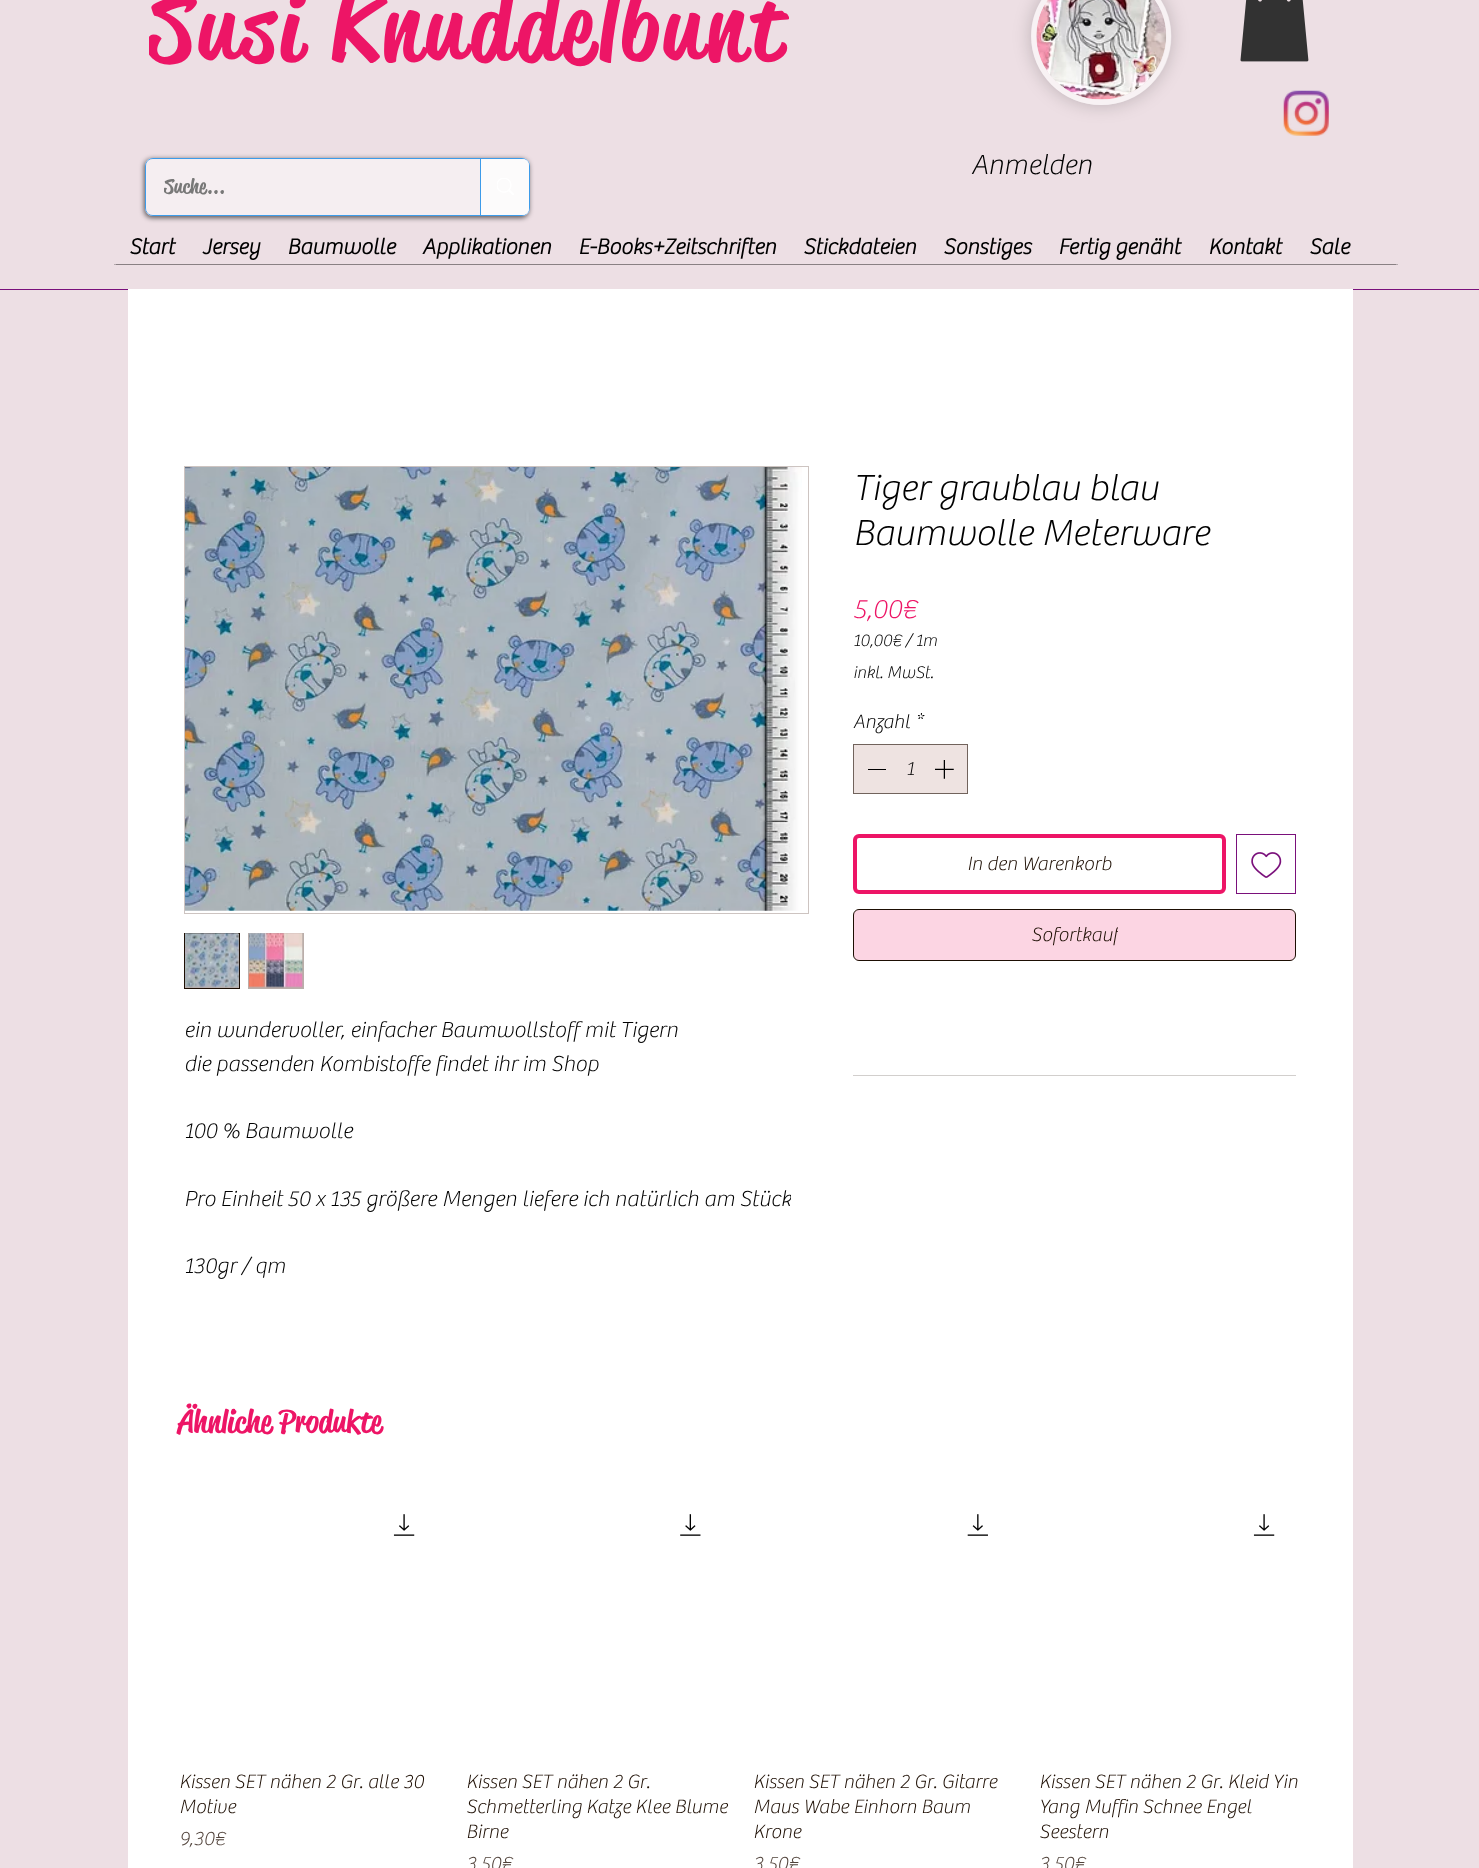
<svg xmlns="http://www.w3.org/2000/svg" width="1479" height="1868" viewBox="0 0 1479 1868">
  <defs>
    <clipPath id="clip1"><rect x="149" y="0" width="640" height="88"/></clipPath>
    <clipPath id="clip2"><path d="M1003 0H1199V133H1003ZM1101-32.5C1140-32.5 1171-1.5 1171 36C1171 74 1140 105 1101 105C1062.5 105 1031 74 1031 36C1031-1.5 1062.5-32.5 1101-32.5Z" clip-rule="evenodd"/></clipPath>
    <clipPath id="clip3"><path d="M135 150H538V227H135ZM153 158H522C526.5 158 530 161.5 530 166V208C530 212.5 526.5 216 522 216H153C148.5 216 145 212.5 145 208V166C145 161.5 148.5 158 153 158Z" clip-rule="evenodd"/></clipPath>
    <clipPath id="clip4"><rect x="164" y="173" width="264" height="26"/></clipPath>
    <clipPath id="clip5"><rect x="1031" y="923" width="87" height="25"/></clipPath>
    <clipPath id="clip6"><rect x="184" y="1014" width="607" height="337"/></clipPath>
  </defs>
  <rect width="100%" height="100%" fill="rgb(237,223,228)"/>
  <g clip-path="url(#clip1)">
    <text x="148" y="59" font-family="'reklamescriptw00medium'" font-size="91.25" font-weight="500" letter-spacing="4.5" fill="rgb(237,21,102)">Susi Knuddelbunt</text>
  </g>
  <g clip-path="url(#clip2)">
    <rect x="1031" y="-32" width="140" height="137" rx="68.5" fill="rgba(0,0,0,0.2)" filter="blur(9px)"/>
  </g>
  <ellipse cx="1101" cy="36" rx="70" ry="69" fill="rgba(255,255,255,0.38)"/>
  <path d="M1101-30C1138.5-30 1169-.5 1169 36C1169 73 1138.5 102.5 1101 102.5C1064 102.5 1034 73 1034 36C1034-.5 1064-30 1101-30Z" fill="none" stroke="rgba(255,255,255,0.38)" stroke-width="5"/>
  <image x="1036" y="0" width="130" height="100" href="pic1.png"/>
  <image x="1240" y="0" width="69" height="62" href="pic2.png"/>
  <image x="1283" y="90" width="46" height="46" href="pic3.png"/>
  <text x="971" y="174" font-family="'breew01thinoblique'" font-size="28.75" font-weight="100" fill="rgb(0,0,0)">Anmelden</text>
  <g clip-path="url(#clip3)">
    <rect x="144" y="159" width="385" height="59" rx="8" fill="rgba(0,0,0,0.6)" filter="blur(2.5px)"/>
  </g>
  <rect x="145.5" y="158.5" width="384" height="57" rx="7.5" fill="none" stroke="rgb(61,155,233)"/>
  <rect x="146" y="159" width="383" height="56" rx="6" fill="rgba(255,255,255,0.47)"/>
  <g clip-path="url(#clip4)">
    <text x="164" y="193" font-family="'reklamescriptw00medium'" font-size="20" font-weight="500" fill="rgb(120,120,120)">Suche...</text>
  </g>
  <path d="M480 159H523C526.5 159 529 161.5 529 165V209C529 212.5 526.5 215 523 215H480Z" fill="rgba(255,255,255,0.73)"/>
  <rect x="480" y="159" width="1" height="56" fill="rgb(61,155,233)"/>
  <image x="497" y="178" width="17" height="17" href="pic4.png"/>
  <text x="129" y="254" font-family="'breew01thinoblique'" font-size="22.5" font-weight="bold" fill="rgb(0,0,0)">Start</text>
  <rect x="114" y="264" width="1284" height="1" fill="rgb(180,169,173)"/>
  <rect x="116" y="264" width="1280" height="1" fill="rgb(137,128,131)"/>
  <g font-family="'breew01thinoblique'" font-size="22.5" font-weight="bold" fill="rgb(0,0,0)">
    <text x="202" y="254">Jersey</text>
    <text x="287" y="254">Baumwolle</text>
    <text x="422" y="254">Applikationen</text>
    <text x="578" y="254">E-Books+Zeitschriften</text>
    <text x="803" y="254">Stickdateien</text>
    <text x="943" y="254">Sonstiges</text>
    <text x="1058" y="254">Fertig genäht</text>
    <text x="1208" y="254">Kontakt</text>
    <text x="1309" y="254">Sale</text>
  </g>
  <rect x="0" y="289" width="1479" height="1" fill="rgb(122,16,123)"/>
  <rect x="128" y="289" width="1225" height="1579" fill="rgb(255,255,255)"/>
  <g font-family="'breew01thinoblique'" font-size="37.5" font-weight="100" fill="rgb(0,0,0)">
    <text>
      <tspan x="853" y="500">Tiger graublau blau</tspan>
      <tspan x="853" y="545">Baumwolle Meterware</tspan>
    </text>
  </g>
  <text x="853" y="618" font-family="'breew01thinoblique'" font-size="27.5" font-weight="100" fill="rgb(237,21,102)">5,00€</text>
  <g font-family="'breew01thinoblique'" font-size="17.5" font-weight="100" fill="rgb(0,0,0)">
    <text>
      <tspan x="853" y="646">10,00€ / 1m</tspan>
      <tspan x="853" y="678">inkl. MwSt.</tspan>
    </text>
  </g>
  <g font-family="'breew01thinoblique'" font-size="20" font-weight="100" fill="rgb(0,0,0)">
    <text x="853" y="728">Anzahl</text>
    <text x="915" y="728">*</text>
  </g>
  <rect x="853.5" y="744.5" width="114" height="49" fill="rgb(238,227,225)" stroke="rgb(113,99,92)"/>
  <rect x="868" y="769" width="18" height="1" fill="rgb(0,0,0)"/>
  <text x="906" y="775" font-family="'breew01thinoblique'" font-size="20" font-weight="100" fill="rgb(0,0,0)">1</text>
  <image x="935" y="760" width="19" height="19" href="pic5.png"/>
  <rect x="855" y="836" width="369" height="56" rx="4" fill="none" stroke="rgb(237,21,102)" stroke-width="4"/>
  <text x="967" y="870" font-family="'breew01thinoblique'" font-size="20" font-weight="100" fill="rgb(29,14,3)">In den Warenkorb</text>
  <rect x="1236.5" y="834.5" width="59" height="59" fill="none" stroke="rgb(122,16,123)"/>
  <image x="1251" y="852" width="31" height="26" href="pic6.png"/>
  <rect x="853.5" y="909.5" width="442" height="51" rx="5.5" fill="rgb(252,213,227)" stroke="rgb(29,14,3)"/>
  <g clip-path="url(#clip5)">
    <text x="1031" y="941" font-family="'breew01thinoblique'" font-size="20" font-weight="100" fill="rgb(29,14,3)">Sofortkauf</text>
  </g>
  <rect x="853" y="1075" width="443" height="1" fill="rgb(210,207,205)"/>
  <rect x="184.5" y="466.5" width="624" height="447" fill="none" stroke="rgb(205,196,193)"/>
  <image x="185" y="467" width="617" height="444" href="pic7.png"/>
  <rect x="184.5" y="933.5" width="55" height="55" fill="rgb(186,174,170)" stroke="rgb(29,14,3)"/>
  <image x="185" y="933" width="54" height="55" href="pic8.png"/>
  <rect x="248" y="933" width="56" height="56" fill="rgb(186,174,170)"/>
  <image x="248" y="933" width="55" height="55" href="pic9.png"/>
  <g font-family="'breew01thinoblique'" font-size="22.5" font-weight="100" fill="rgb(0,0,0)">
    <text>
      <tspan x="184" y="1037">ein wundervoller, einfacher Baumwollstoff mit Tigern</tspan>
      <tspan x="184" y="1071">die passenden Kombistoffe findet ihr im Shop</tspan>
    </text>
    <text x="184" y="1138">100 % Baumwolle</text>
  </g>
  <g clip-path="url(#clip6)">
    <text x="184" y="1206" font-family="'breew01thinoblique'" font-size="22.5" font-weight="100" fill="rgb(0,0,0)">Pro Einheit 50 x 135 größere Mengen liefere ich natürlich am Stück</text>
  </g>
  <text x="184" y="1273" font-family="'breew01thinoblique'" font-size="22.5" font-weight="100" fill="rgb(0,0,0)">130gr / qm</text>
  <text x="178" y="1432" font-family="'reklamescriptw00medium'" font-size="31.25" font-weight="500" fill="rgb(237,21,102)">Ähnliche Produkte</text>
  <image x="393" y="1514" width="22" height="22" href="pic10.png"/>
  <g font-family="'breew01thinoblique'" font-size="20" font-weight="100" fill="rgb(29,14,3)">
    <text>
      <tspan x="179" y="1788">Kissen SET nähen 2 Gr. alle 30</tspan>
      <tspan x="179" y="1813">Motive</tspan>
    </text>
  </g>
  <text x="179" y="1845" font-family="'breew01thinoblique'" font-size="20" font-weight="100" fill="rgb(81,67,59)">9,30€</text>
  <image x="680" y="1514" width="21" height="22" href="pic11.png"/>
  <g font-family="'breew01thinoblique'" font-size="20" font-weight="100" fill="rgb(29,14,3)">
    <text>
      <tspan x="466" y="1788">Kissen SET nähen 2 Gr.</tspan>
      <tspan x="466" y="1813">Schmetterling Katze Klee Blume</tspan>
      <tspan x="466" y="1838">Birne</tspan>
    </text>
  </g>
  <text x="466" y="1870" font-family="'breew01thinoblique'" font-size="20" font-weight="100" fill="rgb(81,67,59)">3,50€</text>
  <image x="967" y="1514" width="21" height="22" href="pic12.png"/>
  <g font-family="'breew01thinoblique'" font-size="20" font-weight="100" fill="rgb(29,14,3)">
    <text>
      <tspan x="753" y="1788">Kissen SET nähen 2 Gr. Gitarre</tspan>
      <tspan x="753" y="1813">Maus Wabe Einhorn Baum</tspan>
      <tspan x="753" y="1838">Krone</tspan>
    </text>
  </g>
  <text x="753" y="1870" font-family="'breew01thinoblique'" font-size="20" font-weight="100" fill="rgb(81,67,59)">3,50€</text>
  <image x="1253" y="1514" width="22" height="22" href="pic10.png"/>
  <g font-family="'breew01thinoblique'" font-size="20" font-weight="100" fill="rgb(29,14,3)">
    <text>
      <tspan x="1039" y="1788">Kissen SET nähen 2 Gr. Kleid Yin</tspan>
      <tspan x="1039" y="1813">Yang Muffin Schnee Engel</tspan>
      <tspan x="1039" y="1838">Seestern</tspan>
    </text>
  </g>
  <text x="1039" y="1870" font-family="'breew01thinoblique'" font-size="20" font-weight="100" fill="rgb(81,67,59)">3,50€</text>
</svg>
